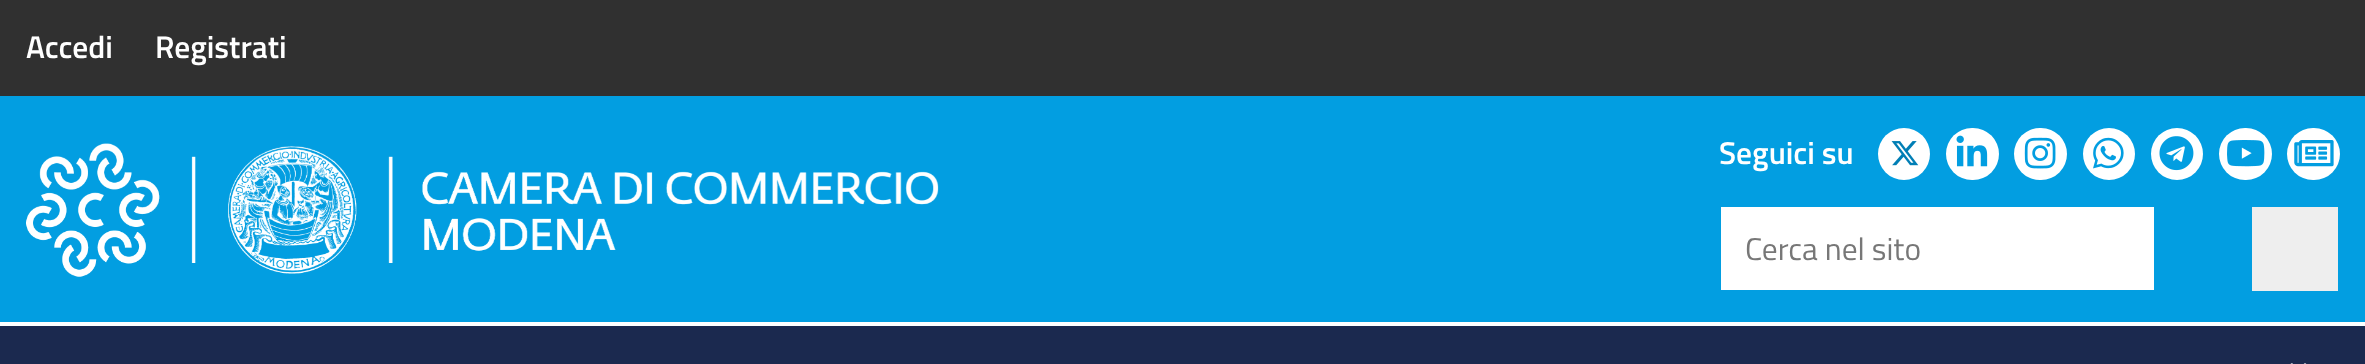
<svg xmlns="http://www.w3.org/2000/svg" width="2365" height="364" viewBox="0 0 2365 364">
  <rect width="100%" height="100%" fill="rgb(27,41,79)"/>
  <rect x="0" y="96" width="2365" height="226" fill="rgb(2,158,225)"/>
  <rect x="0" y="0" width="2365" height="96" fill="rgb(48,48,48)"/>
  <g font-family="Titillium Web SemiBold" font-size="31.5" font-weight="600" fill="rgb(255,255,255)">
    <text x="26" y="58">Accedi</text>
    <text x="155" y="58">Registrati</text>
  </g>
  <image x="26" y="143" width="913" height="134" href="pic1.png"/>
  <text x="1719" y="164" font-family="Titillium Web SemiBold" font-size="31.5" font-weight="600" fill="rgb(255,255,255)">Seguici su</text>
  <circle cx="1904" cy="154" r="26" fill="rgb(255,255,255)"/>
  <image x="1891" y="141" width="28" height="25" href="pic2.png"/>
  <rect x="1946" y="128" width="53" height="52" rx="26" fill="rgb(255,255,255)"/>
  <image x="1956" y="135" width="32" height="32" href="pic3.png"/>
  <rect x="2014" y="128" width="53" height="52" rx="26" fill="rgb(255,255,255)"/>
  <image x="2024" y="137" width="32" height="32" href="pic4.png"/>
  <circle cx="2109" cy="154" r="26" fill="rgb(255,255,255)"/>
  <image x="2093" y="137" width="31" height="32" href="pic5.png"/>
  <circle cx="2177" cy="154" r="26" fill="rgb(255,255,255)"/>
  <image x="2159" y="136" width="35" height="35" href="pic6.png"/>
  <rect x="2219" y="128" width="53" height="52" rx="26" fill="rgb(255,255,255)"/>
  <image x="2227" y="140" width="38" height="27" href="pic7.png"/>
  <rect x="2287" y="128" width="53" height="52" rx="26" fill="rgb(255,255,255)"/>
  <image x="2294" y="140" width="40" height="27" href="pic8.png"/>
  <rect x="1721" y="207" width="433" height="83" fill="rgb(255,255,255)"/>
  <text x="1745" y="260" font-family="Titillium Web" font-size="31.5" fill="rgb(119,119,119)">Cerca nel sito</text>
  <rect x="2252" y="207" width="86" height="84" fill="rgb(238,238,238)"/>
  <rect x="0" y="322" width="2365" height="4" fill="rgb(255,255,255)"/>
  <image x="2290" y="363" width="17" height="1" href="pic9.png"/>
</svg>
